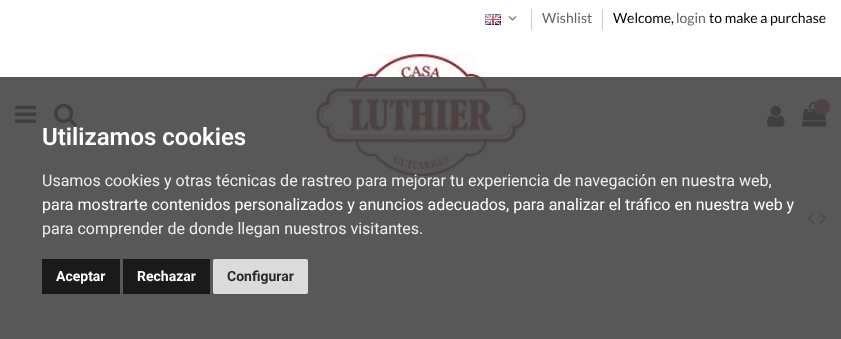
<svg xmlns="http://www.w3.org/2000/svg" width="841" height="339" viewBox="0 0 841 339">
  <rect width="100%" height="100%" fill="rgb(255,255,255)"/>
  <image x="485" y="14" width="16" height="11" href="pic1.png"/>
  <image x="508" y="16" width="9" height="5" href="pic2.png"/>
  <rect x="531" y="9" width="1" height="21" fill="rgb(204,204,204)"/>
  <text x="542" y="23" font-family="Lato" font-size="14" fill="rgb(99,99,99)">Wishlist</text>
  <rect x="602" y="9" width="1" height="21" fill="rgb(204,204,204)"/>
  <text x="613" y="23" font-family="Lato" font-size="14" fill="rgb(0,0,0)">Welcome,</text>
  <text x="676" y="23" font-family="Lato" font-size="14" fill="rgb(99,99,99)">login</text>
  <text x="709" y="23" font-family="Lato" font-size="14" fill="rgb(0,0,0)">to make a purchase</text>
  <rect x="0" y="196" width="841" height="1" fill="rgb(227,227,227)"/>
  <image x="15" y="105" width="21" height="18" href="pic3.png"/>
  <image x="54" y="103" width="23" height="24" href="pic4.png"/>
  <image x="316" y="54" width="210" height="122" href="pic5.png"/>
  <image x="767" y="105" width="18" height="22" href="pic6.png"/>
  <image x="802" y="102" width="25" height="25" href="pic7.png"/>
  <circle cx="822" cy="107" r="8" fill="rgb(146,49,51)"/>
  <image x="807" y="212" width="8" height="12" href="pic8.png"/>
  <image x="819" y="212" width="7" height="12" href="pic9.png"/>
  <rect x="0" y="77" width="841" height="262" fill="rgba(70,70,70,0.9)"/>
  <text x="42" y="145" font-family="Roboto" font-size="24" font-weight="600" fill="rgb(255,255,255)">Utilizamos cookies</text>
  <text x="42" y="186" font-family="Roboto" font-size="16" fill="rgb(238,238,238)">Usamos cookies y otras técnicas de rastreo para mejorar tu experiencia de navegación en nuestra web,</text>
  <text x="42" y="210" font-family="Roboto" font-size="16" fill="rgb(255,255,255)">para mostrarte contenidos personalizados y anuncios adecuados, para analizar el tráfico en nuestra web y</text>
  <text x="42" y="234" font-family="Roboto" font-size="16" fill="rgb(238,238,238)">para comprender de donde llegan nuestros visitantes.</text>
  <rect x="42" y="259" width="78" height="35" fill="rgb(26,26,26)"/>
  <text x="56" y="281" font-family="Roboto" font-size="14" font-weight="bold" fill="rgb(255,255,255)">Aceptar</text>
  <rect x="123" y="259" width="87" height="35" fill="rgb(26,26,26)"/>
  <text x="137" y="281" font-family="Roboto" font-size="14" font-weight="bold" fill="rgb(255,255,255)">Rechazar</text>
  <rect x="213" y="259" width="95" height="35" rx="2" fill="rgba(234,234,234,0.9)"/>
  <text x="227" y="281" font-family="Roboto" font-size="14" font-weight="bold" fill="rgb(41,41,41)">Configurar</text>
</svg>
